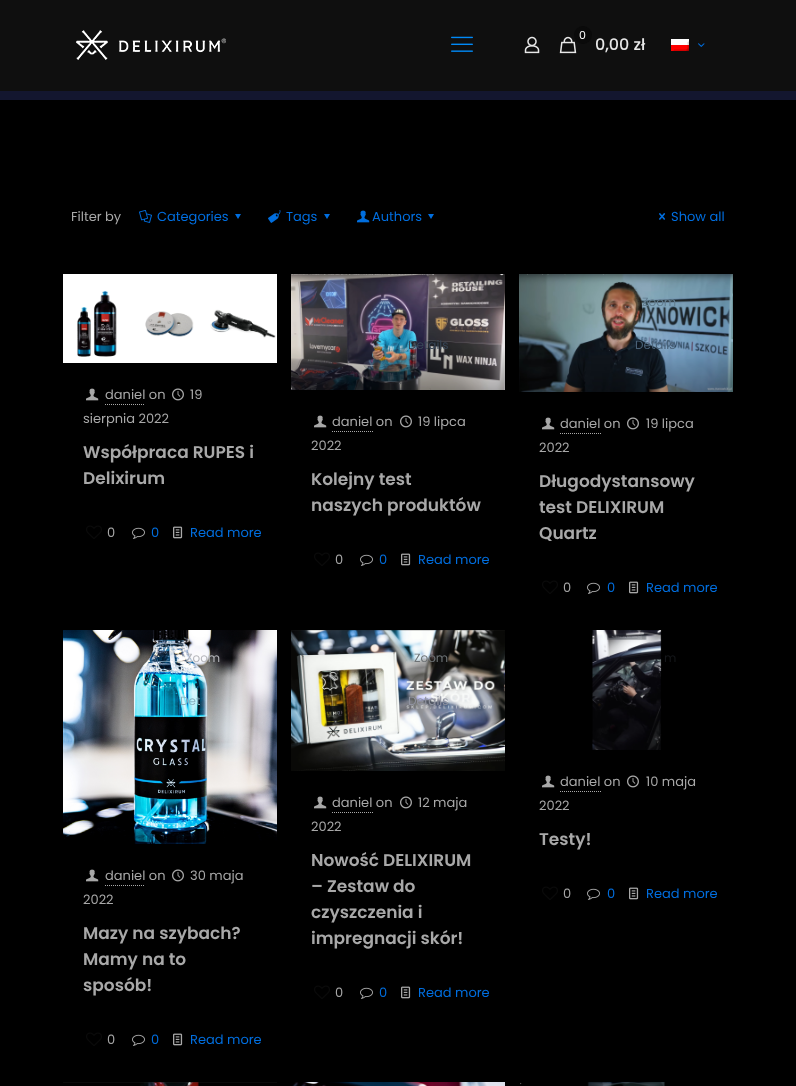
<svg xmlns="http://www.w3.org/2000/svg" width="796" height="1086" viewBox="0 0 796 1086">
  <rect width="100%" height="100%" fill="rgb(0,0,0)"/>
  <rect x="0" y="91" width="796" height="9" fill="rgb(19,22,47)"/>
  <rect x="0" y="0" width="796" height="91" fill="rgb(15,15,15)"/>
  <image x="76" y="30" width="150" height="30" href="pic1.png"/>
  <image x="451" y="36" width="22" height="16" href="pic2.png"/>
  <image x="524" y="36" width="16" height="18" href="pic3.png"/>
  <image x="559" y="36" width="18" height="18" href="pic4.png"/>
  <circle cx="583" cy="35" r="9" fill="rgb(10,10,10)"/>
  <text x="579" y="39" font-family="Poppins" font-size="11" fill="rgb(255,255,255)">0</text>
  <text x="595" y="50" font-family="Poppins" font-size="16" font-weight="500" fill="rgb(232,232,232)">0,00 zł</text>
  <image x="671" y="39" width="18" height="12" href="pic5.png"/>
  <image x="698" y="43" width="7" height="4" href="pic6.png"/>
  <text x="71" y="221" font-family="Poppins" font-size="13" fill="rgb(168,168,168)">Filter by</text>
  <image x="139" y="210" width="13" height="13" href="pic7.png"/>
  <text x="157" y="221" font-family="Poppins" font-size="13" fill="rgb(0,110,223)">Categories</text>
  <path d="M241 214L238 219L235 214Z" fill="rgb(0,110,223)"/>
  <image x="268" y="210" width="13" height="13" href="pic8.png"/>
  <text x="286" y="221" font-family="Poppins" font-size="13" fill="rgb(0,110,223)">Tags</text>
  <path d="M330 214L327 219L324 214Z" fill="rgb(0,110,223)"/>
  <image x="357" y="210" width="13" height="13" href="pic9.png"/>
  <text x="372" y="221" font-family="Poppins" font-size="13" fill="rgb(0,110,223)">Authors</text>
  <path d="M434 214L431 219L428 214Z" fill="rgb(0,110,223)"/>
  <image x="659" y="213" width="7" height="7" href="pic10.png"/>
  <text x="671" y="221" font-family="Poppins" font-size="13" fill="rgb(0,110,223)">Show all</text>
  <image x="63" y="274" width="214" height="89" href="pic11.png"/>
  <image x="172" y="388" width="12" height="13" href="pic12.png"/>
  <g font-family="Poppins" font-size="13" fill="rgb(168,168,168)">
    <text x="190" y="399">19</text>
    <text x="83" y="423">sierpnia 2022</text>
  </g>
  <image x="86" y="388" width="13" height="13" href="pic13.png"/>
  <text x="105" y="399" font-family="Poppins" font-size="13" fill="rgb(168,168,168)">daniel on</text>
  <path d="M105 404.5H145" fill="none" stroke="rgb(168,168,168)" stroke-dasharray="1 1"/>
  <g font-family="Poppins" font-size="17" font-weight="600" fill="rgb(168,168,168)">
    <text>
      <tspan x="83" y="458">Współpraca RUPES i</tspan>
      <tspan x="83" y="484">Delixirum</tspan>
    </text>
  </g>
  <image x="86" y="525" width="16" height="14" href="pic14.png"/>
  <text x="107" y="537" font-family="Poppins" font-size="13" fill="rgb(168,168,168)">0</text>
  <image x="132" y="527" width="13" height="12" href="pic15.png"/>
  <text x="151" y="537" font-family="Poppins" font-size="13" fill="rgb(0,110,223)">0</text>
  <image x="173" y="526" width="10" height="13" href="pic16.png"/>
  <text x="190" y="537" font-family="Poppins" font-size="13" fill="rgb(0,110,223)">Read more</text>
  <image x="291" y="274" width="214" height="116" href="pic17.png"/>
  <text x="408" y="349" font-family="Poppins" font-size="12" fill="rgb(56,70,86)">Details</text>
  <image x="400" y="415" width="12" height="13" href="pic12.png"/>
  <g font-family="Poppins" font-size="13" fill="rgb(168,168,168)">
    <text x="418" y="426">19 lipca</text>
    <text x="311" y="450">2022</text>
  </g>
  <image x="314" y="415" width="13" height="13" href="pic13.png"/>
  <text x="332" y="426" font-family="Poppins" font-size="13" fill="rgb(168,168,168)">daniel on</text>
  <path d="M332 431.5H373" fill="none" stroke="rgb(168,168,168)" stroke-dasharray="1 1"/>
  <g font-family="Poppins" font-size="17" font-weight="600" fill="rgb(168,168,168)">
    <text>
      <tspan x="311" y="485">Kolejny test</tspan>
      <tspan x="311" y="511">naszych produktów</tspan>
    </text>
  </g>
  <image x="314" y="552" width="16" height="14" href="pic14.png"/>
  <text x="335" y="564" font-family="Poppins" font-size="13" fill="rgb(168,168,168)">0</text>
  <image x="360" y="554" width="13" height="12" href="pic15.png"/>
  <text x="379" y="564" font-family="Poppins" font-size="13" fill="rgb(0,110,223)">0</text>
  <image x="401" y="553" width="10" height="13" href="pic16.png"/>
  <text x="418" y="564" font-family="Poppins" font-size="13" fill="rgb(0,110,223)">Read more</text>
  <image x="519" y="274" width="214" height="118" href="pic18.png"/>
  <text x="642" y="306" font-family="Poppins" font-size="12" fill="rgb(99,126,144)">Zoom</text>
  <text x="635" y="349" font-family="Poppins" font-size="12" fill="rgb(73,96,118)">Details</text>
  <image x="627" y="417" width="12" height="13" href="pic12.png"/>
  <g font-family="Poppins" font-size="13" fill="rgb(168,168,168)">
    <text x="646" y="428">19 lipca</text>
    <text x="539" y="452">2022</text>
  </g>
  <image x="542" y="417" width="13" height="13" href="pic13.png"/>
  <text x="560" y="428" font-family="Poppins" font-size="13" fill="rgb(168,168,168)">daniel on</text>
  <path d="M560 433.5H601" fill="none" stroke="rgb(168,168,168)" stroke-dasharray="1 1"/>
  <g font-family="Poppins" font-size="17" font-weight="600" fill="rgb(168,168,168)">
    <text>
      <tspan x="539" y="487">Długodystansowy</tspan>
      <tspan x="539" y="513">test DELIXIRUM</tspan>
      <tspan x="539" y="539">Quartz</tspan>
    </text>
  </g>
  <image x="542" y="580" width="16" height="14" href="pic14.png"/>
  <text x="563" y="592" font-family="Poppins" font-size="13" fill="rgb(168,168,168)">0</text>
  <image x="587" y="582" width="13" height="12" href="pic15.png"/>
  <text x="607" y="592" font-family="Poppins" font-size="13" fill="rgb(0,110,223)">0</text>
  <image x="629" y="581" width="10" height="13" href="pic16.png"/>
  <text x="646" y="592" font-family="Poppins" font-size="13" fill="rgb(0,110,223)">Read more</text>
  <image x="63" y="630" width="214" height="214" href="pic19.png"/>
  <text x="186" y="662" font-family="Poppins" font-size="12" fill="rgb(181,182,187)">Zoom</text>
  <text x="180" y="705" font-family="Poppins" font-size="12" fill="rgb(136,179,193)">Det</text>
  <image x="172" y="869" width="12" height="13" href="pic12.png"/>
  <g font-family="Poppins" font-size="13" fill="rgb(168,168,168)">
    <text x="190" y="880">30 maja</text>
    <text x="83" y="904">2022</text>
  </g>
  <image x="86" y="869" width="13" height="13" href="pic13.png"/>
  <text x="105" y="880" font-family="Poppins" font-size="13" fill="rgb(168,168,168)">daniel on</text>
  <path d="M105 885.5H145" fill="none" stroke="rgb(168,168,168)" stroke-dasharray="1 1"/>
  <g font-family="Poppins" font-size="17" font-weight="600" fill="rgb(168,168,168)">
    <text>
      <tspan x="83" y="939">Mazy na szybach?</tspan>
      <tspan x="83" y="965">Mamy na to</tspan>
      <tspan x="83" y="991">sposób!</tspan>
    </text>
  </g>
  <image x="86" y="1032" width="16" height="14" href="pic14.png"/>
  <text x="107" y="1044" font-family="Poppins" font-size="13" fill="rgb(168,168,168)">0</text>
  <image x="132" y="1034" width="13" height="12" href="pic15.png"/>
  <text x="151" y="1044" font-family="Poppins" font-size="13" fill="rgb(0,110,223)">0</text>
  <image x="173" y="1033" width="10" height="13" href="pic16.png"/>
  <text x="190" y="1044" font-family="Poppins" font-size="13" fill="rgb(0,110,223)">Read more</text>
  <image x="291" y="630" width="214" height="141" href="pic20.png"/>
  <text x="414" y="662" font-family="Poppins" font-size="12" fill="rgb(109,114,117)">Zoom</text>
  <text x="408" y="705" font-family="Poppins" font-size="12" fill="rgb(144,147,160)">Details</text>
  <image x="400" y="796" width="12" height="13" href="pic12.png"/>
  <g font-family="Poppins" font-size="13" fill="rgb(168,168,168)">
    <text x="418" y="807">12 maja</text>
    <text x="311" y="831">2022</text>
  </g>
  <image x="314" y="796" width="13" height="13" href="pic13.png"/>
  <text x="332" y="807" font-family="Poppins" font-size="13" fill="rgb(168,168,168)">daniel on</text>
  <path d="M332 812.5H373" fill="none" stroke="rgb(168,168,168)" stroke-dasharray="1 1"/>
  <g font-family="Poppins" font-size="17" font-weight="600" fill="rgb(168,168,168)">
    <text>
      <tspan x="311" y="866">Nowość DELIXIRUM</tspan>
      <tspan x="311" y="892">– Zestaw do</tspan>
      <tspan x="311" y="918">czyszczenia i</tspan>
      <tspan x="311" y="944">impregnacji skór!</tspan>
    </text>
  </g>
  <image x="314" y="985" width="16" height="14" href="pic14.png"/>
  <text x="335" y="997" font-family="Poppins" font-size="13" fill="rgb(168,168,168)">0</text>
  <image x="360" y="987" width="13" height="12" href="pic15.png"/>
  <text x="379" y="997" font-family="Poppins" font-size="13" fill="rgb(0,110,223)">0</text>
  <image x="401" y="986" width="10" height="13" href="pic16.png"/>
  <text x="418" y="997" font-family="Poppins" font-size="13" fill="rgb(0,110,223)">Read more</text>
  <image x="592" y="630" width="70" height="120" href="pic21.png"/>
  <text x="664" y="662" font-family="Poppins" font-size="12" fill="rgb(21,23,26)">m</text>
  <image x="627" y="775" width="12" height="13" href="pic12.png"/>
  <g font-family="Poppins" font-size="13" fill="rgb(168,168,168)">
    <text x="646" y="786">10 maja</text>
    <text x="539" y="810">2022</text>
  </g>
  <image x="542" y="775" width="13" height="13" href="pic13.png"/>
  <text x="560" y="786" font-family="Poppins" font-size="13" fill="rgb(168,168,168)">daniel on</text>
  <path d="M560 791.5H601" fill="none" stroke="rgb(168,168,168)" stroke-dasharray="1 1"/>
  <text x="539" y="845" font-family="Poppins" font-size="17" font-weight="600" fill="rgb(168,168,168)">Testy!</text>
  <image x="542" y="886" width="16" height="14" href="pic14.png"/>
  <text x="563" y="898" font-family="Poppins" font-size="13" fill="rgb(168,168,168)">0</text>
  <image x="587" y="888" width="13" height="12" href="pic15.png"/>
  <text x="607" y="898" font-family="Poppins" font-size="13" fill="rgb(0,110,223)">0</text>
  <image x="629" y="887" width="10" height="13" href="pic16.png"/>
  <text x="646" y="898" font-family="Poppins" font-size="13" fill="rgb(0,110,223)">Read more</text>
  <image x="63" y="1082" width="214" height="4" href="pic22.png"/>
  <image x="292" y="1082" width="213" height="4" href="pic23.png"/>
  <image x="520" y="1082" width="145" height="4" href="pic24.png"/>
</svg>
